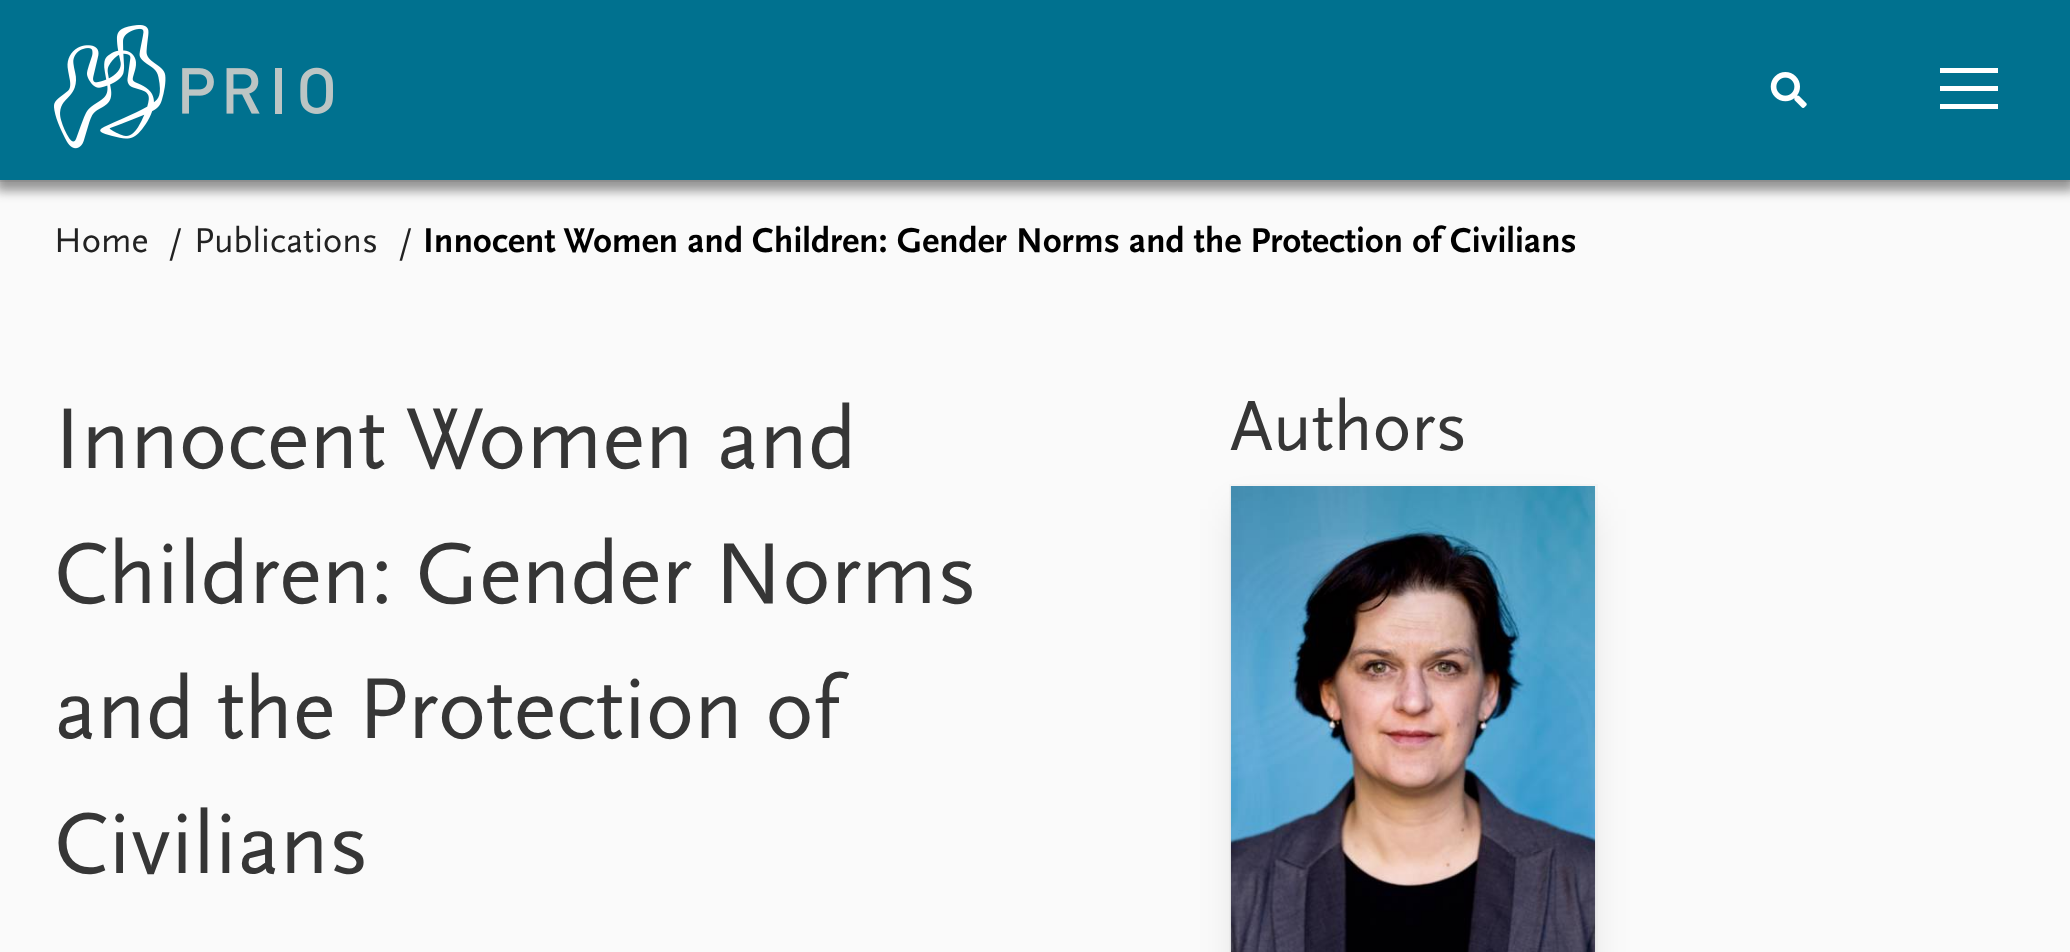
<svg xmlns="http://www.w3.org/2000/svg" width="2070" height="952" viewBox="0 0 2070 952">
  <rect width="100%" height="100%" fill="rgb(250,250,250)"/>
  <rect x="-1" y="-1" width="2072" height="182" fill="none" stroke="rgb(231,231,231)" stroke-width="2"/>
  <rect x="-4" y="5" width="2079" height="186" fill="rgba(50,50,50,0.5)" filter="blur(5.5px)"/>
  <rect x="0" y="0" width="2070" height="180" fill="rgb(0,113,143)"/>
  <image x="54" y="25" width="279" height="124" href="pic1.png"/>
  <image x="1770" y="72" width="37" height="36" href="pic2.png"/>
  <rect x="1940" y="68" width="58" height="5" fill="rgb(255,255,255)"/>
  <rect x="1940" y="86" width="58" height="5" fill="rgb(255,255,255)"/>
  <rect x="1940" y="104" width="58" height="5" fill="rgb(255,255,255)"/>
  <g font-family="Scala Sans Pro" font-size="36" fill="rgb(34,34,34)">
    <text x="54" y="252">Home</text>
    <text x="168" y="252">/</text>
    <text x="194" y="252">Publications</text>
    <text x="398" y="252">/</text>
  </g>
  <text x="423" y="252" font-family="Scala Sans Pro" font-size="36" font-weight="bold" fill="rgb(0,0,0)">Innocent Women and Children: Gender Norms and the Protection of Civilians</text>
  <g font-family="Scala Sans Pro" font-size="90" fill="rgb(54,54,54)">
    <text>
      <tspan x="54" y="468">Innocent Women and</tspan>
      <tspan x="54" y="603">Children: Gender Norms</tspan>
      <tspan x="54" y="738">and the Protection of</tspan>
      <tspan x="54" y="873">Civilians</tspan>
    </text>
  </g>
  <text x="1230" y="450" font-family="Scala Sans Pro" font-size="72" fill="rgb(54,54,54)">Authors</text>
  <rect x="1230" y="485" width="367" height="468" fill="none" stroke="rgb(245,245,245)" stroke-width="2"/>
  <rect x="1235" y="509" width="356" height="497" fill="rgba(10,10,10,0.1)" filter="blur(18px)"/>
  <image x="1230" y="486" width="366" height="466" href="pic3.png"/>
</svg>
